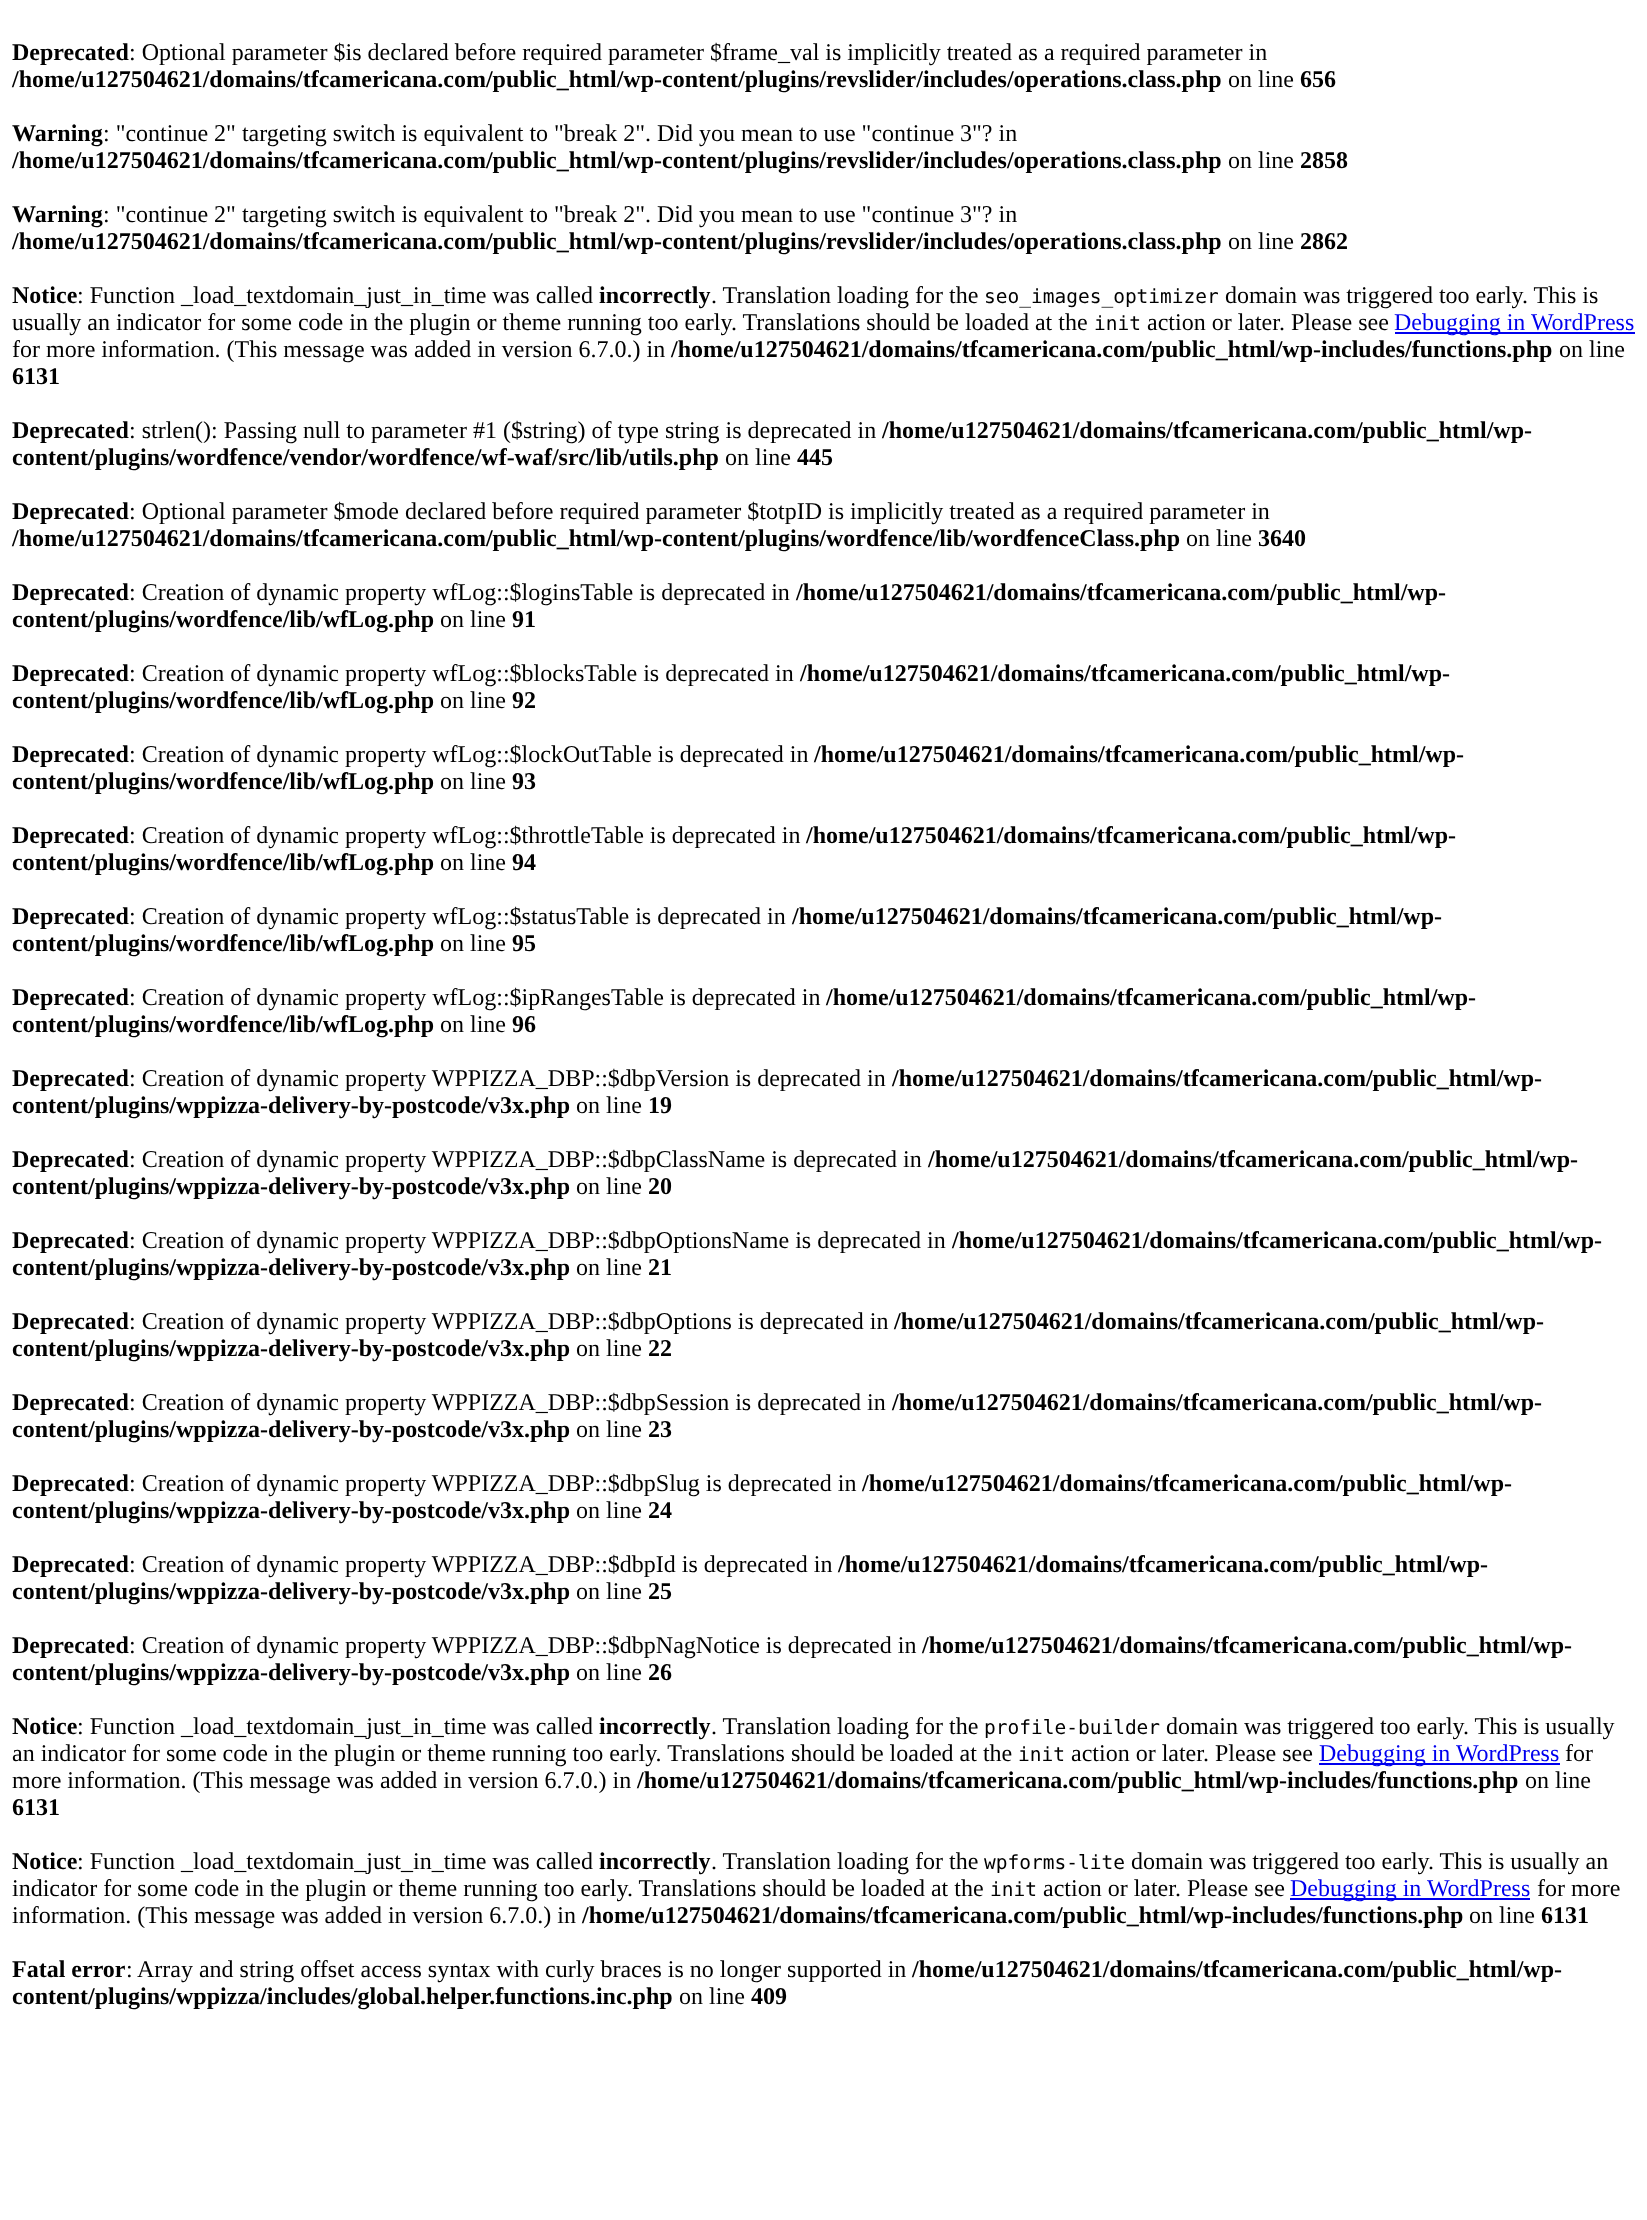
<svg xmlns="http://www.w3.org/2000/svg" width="1647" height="2220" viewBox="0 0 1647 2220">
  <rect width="100%" height="100%" fill="rgb(255,255,255)"/>
  <text x="12" y="60" font-family="Liberation Serif" font-size="24" font-weight="bold" fill="rgb(0,0,0)">Deprecated</text>
  <text x="129" y="60" font-family="Liberation Serif" font-size="24" fill="rgb(0,0,0)">: Optional parameter $is declared before required parameter $frame_val is implicitly treated as a required parameter in</text>
  <text x="12" y="87" font-family="Liberation Serif" font-size="24" font-weight="bold" fill="rgb(0,0,0)">/home/u127504621/domains/tfcamericana.com/public_html/wp-content/plugins/revslider/includes/operations.class.php</text>
  <text x="1228" y="87" font-family="Liberation Serif" font-size="24" fill="rgb(0,0,0)">on line</text>
  <g font-family="Liberation Serif" font-size="24" font-weight="bold" fill="rgb(0,0,0)">
    <text x="1300" y="87">656</text>
    <text x="12" y="141">Warning</text>
  </g>
  <text x="103" y="141" font-family="Liberation Serif" font-size="24" fill="rgb(0,0,0)">: "continue 2" targeting switch is equivalent to "break 2". Did you mean to use "continue 3"? in</text>
  <text x="12" y="168" font-family="Liberation Serif" font-size="24" font-weight="bold" fill="rgb(0,0,0)">/home/u127504621/domains/tfcamericana.com/public_html/wp-content/plugins/revslider/includes/operations.class.php</text>
  <text x="1228" y="168" font-family="Liberation Serif" font-size="24" fill="rgb(0,0,0)">on line</text>
  <g font-family="Liberation Serif" font-size="24" font-weight="bold" fill="rgb(0,0,0)">
    <text x="1300" y="168">2858</text>
    <text x="12" y="222">Warning</text>
  </g>
  <text x="103" y="222" font-family="Liberation Serif" font-size="24" fill="rgb(0,0,0)">: "continue 2" targeting switch is equivalent to "break 2". Did you mean to use "continue 3"? in</text>
  <text x="12" y="249" font-family="Liberation Serif" font-size="24" font-weight="bold" fill="rgb(0,0,0)">/home/u127504621/domains/tfcamericana.com/public_html/wp-content/plugins/revslider/includes/operations.class.php</text>
  <text x="1228" y="249" font-family="Liberation Serif" font-size="24" fill="rgb(0,0,0)">on line</text>
  <g font-family="Liberation Serif" font-size="24" font-weight="bold" fill="rgb(0,0,0)">
    <text x="1300" y="249">2862</text>
    <text x="12" y="303">Notice</text>
  </g>
  <text x="77" y="303" font-family="Liberation Serif" font-size="24" fill="rgb(0,0,0)">: Function _load_textdomain_just_in_time was called</text>
  <text x="599" y="303" font-family="Liberation Serif" font-size="24" font-weight="bold" fill="rgb(0,0,0)">incorrectly</text>
  <text x="711" y="303" font-family="Liberation Serif" font-size="24" fill="rgb(0,0,0)">. Translation loading for the</text>
  <text x="984" y="303" font-family="DejaVu Sans Mono" font-size="19.5" fill="rgb(0,0,0)">seo_images_optimizer</text>
  <g font-family="Liberation Serif" font-size="24" fill="rgb(0,0,0)">
    <text x="1225" y="303">domain was triggered too early. This is</text>
    <text x="12" y="330">usually an indicator for some code in the plugin or theme running too early. Translations should be loaded at the</text>
  </g>
  <text x="1094" y="330" font-family="DejaVu Sans Mono" font-size="19.5" fill="rgb(0,0,0)">init</text>
  <text x="1147" y="330" font-family="Liberation Serif" font-size="24" fill="rgb(0,0,0)">action or later. Please see</text>
  <rect x="1395" y="332" width="240" height="2" fill="rgb(0,0,238)"/>
  <text x="1394" y="330" font-family="Liberation Serif" font-size="24" fill="rgb(0,0,238)">Debugging in WordPress</text>
  <text x="12" y="357" font-family="Liberation Serif" font-size="24" fill="rgb(0,0,0)">for more information. (This message was added in version 6.7.0.) in</text>
  <text x="671" y="357" font-family="Liberation Serif" font-size="24" font-weight="bold" fill="rgb(0,0,0)">/home/u127504621/domains/tfcamericana.com/public_html/wp-includes/functions.php</text>
  <text x="1559" y="357" font-family="Liberation Serif" font-size="24" fill="rgb(0,0,0)">on line</text>
  <g font-family="Liberation Serif" font-size="24" font-weight="bold" fill="rgb(0,0,0)">
    <text x="12" y="384">6131</text>
    <text x="12" y="438">Deprecated</text>
  </g>
  <text x="129" y="438" font-family="Liberation Serif" font-size="24" fill="rgb(0,0,0)">: strlen(): Passing null to parameter #1 ($string) of type string is deprecated in</text>
  <g font-family="Liberation Serif" font-size="24" font-weight="bold" fill="rgb(0,0,0)">
    <text x="882" y="438">/home/u127504621/domains/tfcamericana.com/public_html/wp-</text>
    <text x="12" y="465">content/plugins/wordfence/vendor/wordfence/wf-waf/src/lib/utils.php</text>
  </g>
  <text x="725" y="465" font-family="Liberation Serif" font-size="24" fill="rgb(0,0,0)">on line</text>
  <g font-family="Liberation Serif" font-size="24" font-weight="bold" fill="rgb(0,0,0)">
    <text x="797" y="465">445</text>
    <text x="12" y="519">Deprecated</text>
  </g>
  <text x="129" y="519" font-family="Liberation Serif" font-size="24" fill="rgb(0,0,0)">: Optional parameter $mode declared before required parameter $totpID is implicitly treated as a required parameter in</text>
  <text x="12" y="546" font-family="Liberation Serif" font-size="24" font-weight="bold" fill="rgb(0,0,0)">/home/u127504621/domains/tfcamericana.com/public_html/wp-content/plugins/wordfence/lib/wordfenceClass.php</text>
  <text x="1186" y="546" font-family="Liberation Serif" font-size="24" fill="rgb(0,0,0)">on line</text>
  <g font-family="Liberation Serif" font-size="24" font-weight="bold" fill="rgb(0,0,0)">
    <text x="1258" y="546">3640</text>
    <text x="12" y="600">Deprecated</text>
  </g>
  <text x="129" y="600" font-family="Liberation Serif" font-size="24" fill="rgb(0,0,0)">: Creation of dynamic property wfLog::$loginsTable is deprecated in</text>
  <g font-family="Liberation Serif" font-size="24" font-weight="bold" fill="rgb(0,0,0)">
    <text x="796" y="600">/home/u127504621/domains/tfcamericana.com/public_html/wp-</text>
    <text x="12" y="627">content/plugins/wordfence/lib/wfLog.php</text>
  </g>
  <text x="440" y="627" font-family="Liberation Serif" font-size="24" fill="rgb(0,0,0)">on line</text>
  <g font-family="Liberation Serif" font-size="24" font-weight="bold" fill="rgb(0,0,0)">
    <text x="512" y="627">91</text>
    <text x="12" y="681">Deprecated</text>
  </g>
  <text x="129" y="681" font-family="Liberation Serif" font-size="24" fill="rgb(0,0,0)">: Creation of dynamic property wfLog::$blocksTable is deprecated in</text>
  <g font-family="Liberation Serif" font-size="24" font-weight="bold" fill="rgb(0,0,0)">
    <text x="800" y="681">/home/u127504621/domains/tfcamericana.com/public_html/wp-</text>
    <text x="12" y="708">content/plugins/wordfence/lib/wfLog.php</text>
  </g>
  <text x="440" y="708" font-family="Liberation Serif" font-size="24" fill="rgb(0,0,0)">on line</text>
  <g font-family="Liberation Serif" font-size="24" font-weight="bold" fill="rgb(0,0,0)">
    <text x="512" y="708">92</text>
    <text x="12" y="762">Deprecated</text>
  </g>
  <text x="129" y="762" font-family="Liberation Serif" font-size="24" fill="rgb(0,0,0)">: Creation of dynamic property wfLog::$lockOutTable is deprecated in</text>
  <g font-family="Liberation Serif" font-size="24" font-weight="bold" fill="rgb(0,0,0)">
    <text x="814" y="762">/home/u127504621/domains/tfcamericana.com/public_html/wp-</text>
    <text x="12" y="789">content/plugins/wordfence/lib/wfLog.php</text>
  </g>
  <text x="440" y="789" font-family="Liberation Serif" font-size="24" fill="rgb(0,0,0)">on line</text>
  <g font-family="Liberation Serif" font-size="24" font-weight="bold" fill="rgb(0,0,0)">
    <text x="512" y="789">93</text>
    <text x="12" y="843">Deprecated</text>
  </g>
  <text x="129" y="843" font-family="Liberation Serif" font-size="24" fill="rgb(0,0,0)">: Creation of dynamic property wfLog::$throttleTable is deprecated in</text>
  <g font-family="Liberation Serif" font-size="24" font-weight="bold" fill="rgb(0,0,0)">
    <text x="806" y="843">/home/u127504621/domains/tfcamericana.com/public_html/wp-</text>
    <text x="12" y="870">content/plugins/wordfence/lib/wfLog.php</text>
  </g>
  <text x="440" y="870" font-family="Liberation Serif" font-size="24" fill="rgb(0,0,0)">on line</text>
  <g font-family="Liberation Serif" font-size="24" font-weight="bold" fill="rgb(0,0,0)">
    <text x="512" y="870">94</text>
    <text x="12" y="924">Deprecated</text>
  </g>
  <text x="129" y="924" font-family="Liberation Serif" font-size="24" fill="rgb(0,0,0)">: Creation of dynamic property wfLog::$statusTable is deprecated in</text>
  <g font-family="Liberation Serif" font-size="24" font-weight="bold" fill="rgb(0,0,0)">
    <text x="792" y="924">/home/u127504621/domains/tfcamericana.com/public_html/wp-</text>
    <text x="12" y="951">content/plugins/wordfence/lib/wfLog.php</text>
  </g>
  <text x="440" y="951" font-family="Liberation Serif" font-size="24" fill="rgb(0,0,0)">on line</text>
  <g font-family="Liberation Serif" font-size="24" font-weight="bold" fill="rgb(0,0,0)">
    <text x="512" y="951">95</text>
    <text x="12" y="1005">Deprecated</text>
  </g>
  <text x="129" y="1005" font-family="Liberation Serif" font-size="24" fill="rgb(0,0,0)">: Creation of dynamic property wfLog::$ipRangesTable is deprecated in</text>
  <g font-family="Liberation Serif" font-size="24" font-weight="bold" fill="rgb(0,0,0)">
    <text x="826" y="1005">/home/u127504621/domains/tfcamericana.com/public_html/wp-</text>
    <text x="12" y="1032">content/plugins/wordfence/lib/wfLog.php</text>
  </g>
  <text x="440" y="1032" font-family="Liberation Serif" font-size="24" fill="rgb(0,0,0)">on line</text>
  <g font-family="Liberation Serif" font-size="24" font-weight="bold" fill="rgb(0,0,0)">
    <text x="512" y="1032">96</text>
    <text x="12" y="1086">Deprecated</text>
  </g>
  <text x="129" y="1086" font-family="Liberation Serif" font-size="24" fill="rgb(0,0,0)">: Creation of dynamic property WPPIZZA_DBP::$dbpVersion is deprecated in</text>
  <g font-family="Liberation Serif" font-size="24" font-weight="bold" fill="rgb(0,0,0)">
    <text x="892" y="1086">/home/u127504621/domains/tfcamericana.com/public_html/wp-</text>
    <text x="12" y="1113">content/plugins/wppizza-delivery-by-postcode/v3x.php</text>
  </g>
  <text x="576" y="1113" font-family="Liberation Serif" font-size="24" fill="rgb(0,0,0)">on line</text>
  <g font-family="Liberation Serif" font-size="24" font-weight="bold" fill="rgb(0,0,0)">
    <text x="648" y="1113">19</text>
    <text x="12" y="1167">Deprecated</text>
  </g>
  <text x="129" y="1167" font-family="Liberation Serif" font-size="24" fill="rgb(0,0,0)">: Creation of dynamic property WPPIZZA_DBP::$dbpClassName is deprecated in</text>
  <g font-family="Liberation Serif" font-size="24" font-weight="bold" fill="rgb(0,0,0)">
    <text x="928" y="1167">/home/u127504621/domains/tfcamericana.com/public_html/wp-</text>
    <text x="12" y="1194">content/plugins/wppizza-delivery-by-postcode/v3x.php</text>
  </g>
  <text x="576" y="1194" font-family="Liberation Serif" font-size="24" fill="rgb(0,0,0)">on line</text>
  <g font-family="Liberation Serif" font-size="24" font-weight="bold" fill="rgb(0,0,0)">
    <text x="648" y="1194">20</text>
    <text x="12" y="1248">Deprecated</text>
  </g>
  <text x="129" y="1248" font-family="Liberation Serif" font-size="24" fill="rgb(0,0,0)">: Creation of dynamic property WPPIZZA_DBP::$dbpOptionsName is deprecated in</text>
  <g font-family="Liberation Serif" font-size="24" font-weight="bold" fill="rgb(0,0,0)">
    <text x="952" y="1248">/home/u127504621/domains/tfcamericana.com/public_html/wp-</text>
    <text x="12" y="1275">content/plugins/wppizza-delivery-by-postcode/v3x.php</text>
  </g>
  <text x="576" y="1275" font-family="Liberation Serif" font-size="24" fill="rgb(0,0,0)">on line</text>
  <g font-family="Liberation Serif" font-size="24" font-weight="bold" fill="rgb(0,0,0)">
    <text x="648" y="1275">21</text>
    <text x="12" y="1329">Deprecated</text>
  </g>
  <text x="129" y="1329" font-family="Liberation Serif" font-size="24" fill="rgb(0,0,0)">: Creation of dynamic property WPPIZZA_DBP::$dbpOptions is deprecated in</text>
  <g font-family="Liberation Serif" font-size="24" font-weight="bold" fill="rgb(0,0,0)">
    <text x="894" y="1329">/home/u127504621/domains/tfcamericana.com/public_html/wp-</text>
    <text x="12" y="1356">content/plugins/wppizza-delivery-by-postcode/v3x.php</text>
  </g>
  <text x="576" y="1356" font-family="Liberation Serif" font-size="24" fill="rgb(0,0,0)">on line</text>
  <g font-family="Liberation Serif" font-size="24" font-weight="bold" fill="rgb(0,0,0)">
    <text x="648" y="1356">22</text>
    <text x="12" y="1410">Deprecated</text>
  </g>
  <text x="129" y="1410" font-family="Liberation Serif" font-size="24" fill="rgb(0,0,0)">: Creation of dynamic property WPPIZZA_DBP::$dbpSession is deprecated in</text>
  <g font-family="Liberation Serif" font-size="24" font-weight="bold" fill="rgb(0,0,0)">
    <text x="892" y="1410">/home/u127504621/domains/tfcamericana.com/public_html/wp-</text>
    <text x="12" y="1437">content/plugins/wppizza-delivery-by-postcode/v3x.php</text>
  </g>
  <text x="576" y="1437" font-family="Liberation Serif" font-size="24" fill="rgb(0,0,0)">on line</text>
  <g font-family="Liberation Serif" font-size="24" font-weight="bold" fill="rgb(0,0,0)">
    <text x="648" y="1437">23</text>
    <text x="12" y="1491">Deprecated</text>
  </g>
  <text x="129" y="1491" font-family="Liberation Serif" font-size="24" fill="rgb(0,0,0)">: Creation of dynamic property WPPIZZA_DBP::$dbpSlug is deprecated in</text>
  <g font-family="Liberation Serif" font-size="24" font-weight="bold" fill="rgb(0,0,0)">
    <text x="862" y="1491">/home/u127504621/domains/tfcamericana.com/public_html/wp-</text>
    <text x="12" y="1518">content/plugins/wppizza-delivery-by-postcode/v3x.php</text>
  </g>
  <text x="576" y="1518" font-family="Liberation Serif" font-size="24" fill="rgb(0,0,0)">on line</text>
  <g font-family="Liberation Serif" font-size="24" font-weight="bold" fill="rgb(0,0,0)">
    <text x="648" y="1518">24</text>
    <text x="12" y="1572">Deprecated</text>
  </g>
  <text x="129" y="1572" font-family="Liberation Serif" font-size="24" fill="rgb(0,0,0)">: Creation of dynamic property WPPIZZA_DBP::$dbpId is deprecated in</text>
  <g font-family="Liberation Serif" font-size="24" font-weight="bold" fill="rgb(0,0,0)">
    <text x="838" y="1572">/home/u127504621/domains/tfcamericana.com/public_html/wp-</text>
    <text x="12" y="1599">content/plugins/wppizza-delivery-by-postcode/v3x.php</text>
  </g>
  <text x="576" y="1599" font-family="Liberation Serif" font-size="24" fill="rgb(0,0,0)">on line</text>
  <g font-family="Liberation Serif" font-size="24" font-weight="bold" fill="rgb(0,0,0)">
    <text x="648" y="1599">25</text>
    <text x="12" y="1653">Deprecated</text>
  </g>
  <text x="129" y="1653" font-family="Liberation Serif" font-size="24" fill="rgb(0,0,0)">: Creation of dynamic property WPPIZZA_DBP::$dbpNagNotice is deprecated in</text>
  <g font-family="Liberation Serif" font-size="24" font-weight="bold" fill="rgb(0,0,0)">
    <text x="922" y="1653">/home/u127504621/domains/tfcamericana.com/public_html/wp-</text>
    <text x="12" y="1680">content/plugins/wppizza-delivery-by-postcode/v3x.php</text>
  </g>
  <text x="576" y="1680" font-family="Liberation Serif" font-size="24" fill="rgb(0,0,0)">on line</text>
  <g font-family="Liberation Serif" font-size="24" font-weight="bold" fill="rgb(0,0,0)">
    <text x="648" y="1680">26</text>
    <text x="12" y="1734">Notice</text>
  </g>
  <text x="77" y="1734" font-family="Liberation Serif" font-size="24" fill="rgb(0,0,0)">: Function _load_textdomain_just_in_time was called</text>
  <text x="599" y="1734" font-family="Liberation Serif" font-size="24" font-weight="bold" fill="rgb(0,0,0)">incorrectly</text>
  <text x="711" y="1734" font-family="Liberation Serif" font-size="24" fill="rgb(0,0,0)">. Translation loading for the</text>
  <text x="984" y="1734" font-family="DejaVu Sans Mono" font-size="19.5" fill="rgb(0,0,0)">profile-builder</text>
  <g font-family="Liberation Serif" font-size="24" fill="rgb(0,0,0)">
    <text x="1166" y="1734">domain was triggered too early. This is usually</text>
    <text x="12" y="1761">an indicator for some code in the plugin or theme running too early. Translations should be loaded at the</text>
  </g>
  <text x="1018" y="1761" font-family="DejaVu Sans Mono" font-size="19.5" fill="rgb(0,0,0)">init</text>
  <text x="1071" y="1761" font-family="Liberation Serif" font-size="24" fill="rgb(0,0,0)">action or later. Please see</text>
  <rect x="1319" y="1763" width="241" height="2" fill="rgb(0,0,238)"/>
  <text x="1319" y="1761" font-family="Liberation Serif" font-size="24" fill="rgb(0,0,238)">Debugging in WordPress</text>
  <g font-family="Liberation Serif" font-size="24" fill="rgb(0,0,0)">
    <text x="1565" y="1761">for</text>
    <text x="12" y="1788">more information. (This message was added in version 6.7.0.) in</text>
  </g>
  <text x="637" y="1788" font-family="Liberation Serif" font-size="24" font-weight="bold" fill="rgb(0,0,0)">/home/u127504621/domains/tfcamericana.com/public_html/wp-includes/functions.php</text>
  <text x="1525" y="1788" font-family="Liberation Serif" font-size="24" fill="rgb(0,0,0)">on line</text>
  <g font-family="Liberation Serif" font-size="24" font-weight="bold" fill="rgb(0,0,0)">
    <text x="12" y="1815">6131</text>
    <text x="12" y="1869">Notice</text>
  </g>
  <text x="77" y="1869" font-family="Liberation Serif" font-size="24" fill="rgb(0,0,0)">: Function _load_textdomain_just_in_time was called</text>
  <text x="599" y="1869" font-family="Liberation Serif" font-size="24" font-weight="bold" fill="rgb(0,0,0)">incorrectly</text>
  <text x="711" y="1869" font-family="Liberation Serif" font-size="24" fill="rgb(0,0,0)">. Translation loading for the</text>
  <text x="984" y="1869" font-family="DejaVu Sans Mono" font-size="19.5" fill="rgb(0,0,0)">wpforms-lite</text>
  <g font-family="Liberation Serif" font-size="24" fill="rgb(0,0,0)">
    <text x="1131" y="1869">domain was triggered too early. This is usually an</text>
    <text x="12" y="1896">indicator for some code in the plugin or theme running too early. Translations should be loaded at the</text>
  </g>
  <text x="990" y="1896" font-family="DejaVu Sans Mono" font-size="19.5" fill="rgb(0,0,0)">init</text>
  <text x="1043" y="1896" font-family="Liberation Serif" font-size="24" fill="rgb(0,0,0)">action or later. Please see</text>
  <rect x="1290" y="1898" width="240" height="2" fill="rgb(0,0,238)"/>
  <text x="1290" y="1896" font-family="Liberation Serif" font-size="24" fill="rgb(0,0,238)">Debugging in WordPress</text>
  <g font-family="Liberation Serif" font-size="24" fill="rgb(0,0,0)">
    <text x="1537" y="1896">for more</text>
    <text x="12" y="1923">information. (This message was added in version 6.7.0.) in</text>
  </g>
  <text x="582" y="1923" font-family="Liberation Serif" font-size="24" font-weight="bold" fill="rgb(0,0,0)">/home/u127504621/domains/tfcamericana.com/public_html/wp-includes/functions.php</text>
  <text x="1469" y="1923" font-family="Liberation Serif" font-size="24" fill="rgb(0,0,0)">on line</text>
  <g font-family="Liberation Serif" font-size="24" font-weight="bold" fill="rgb(0,0,0)">
    <text x="1541" y="1923">6131</text>
    <text x="12" y="1977">Fatal error</text>
  </g>
  <g font-family="Liberation Serif" font-size="24" fill="rgb(0,0,0)">
    <text x="126" y="1977">:</text>
    <text x="137" y="1977">Array and string offset access syntax with curly braces is no longer supported in</text>
  </g>
  <g font-family="Liberation Serif" font-size="24" font-weight="bold" fill="rgb(0,0,0)">
    <text x="912" y="1977">/home/u127504621/domains/tfcamericana.com/public_html/wp-</text>
    <text x="12" y="2004">content/plugins/wppizza/includes/global.helper.functions.inc.php</text>
  </g>
  <text x="679" y="2004" font-family="Liberation Serif" font-size="24" fill="rgb(0,0,0)">on line</text>
  <text x="751" y="2004" font-family="Liberation Serif" font-size="24" font-weight="bold" fill="rgb(0,0,0)">409</text>
</svg>
